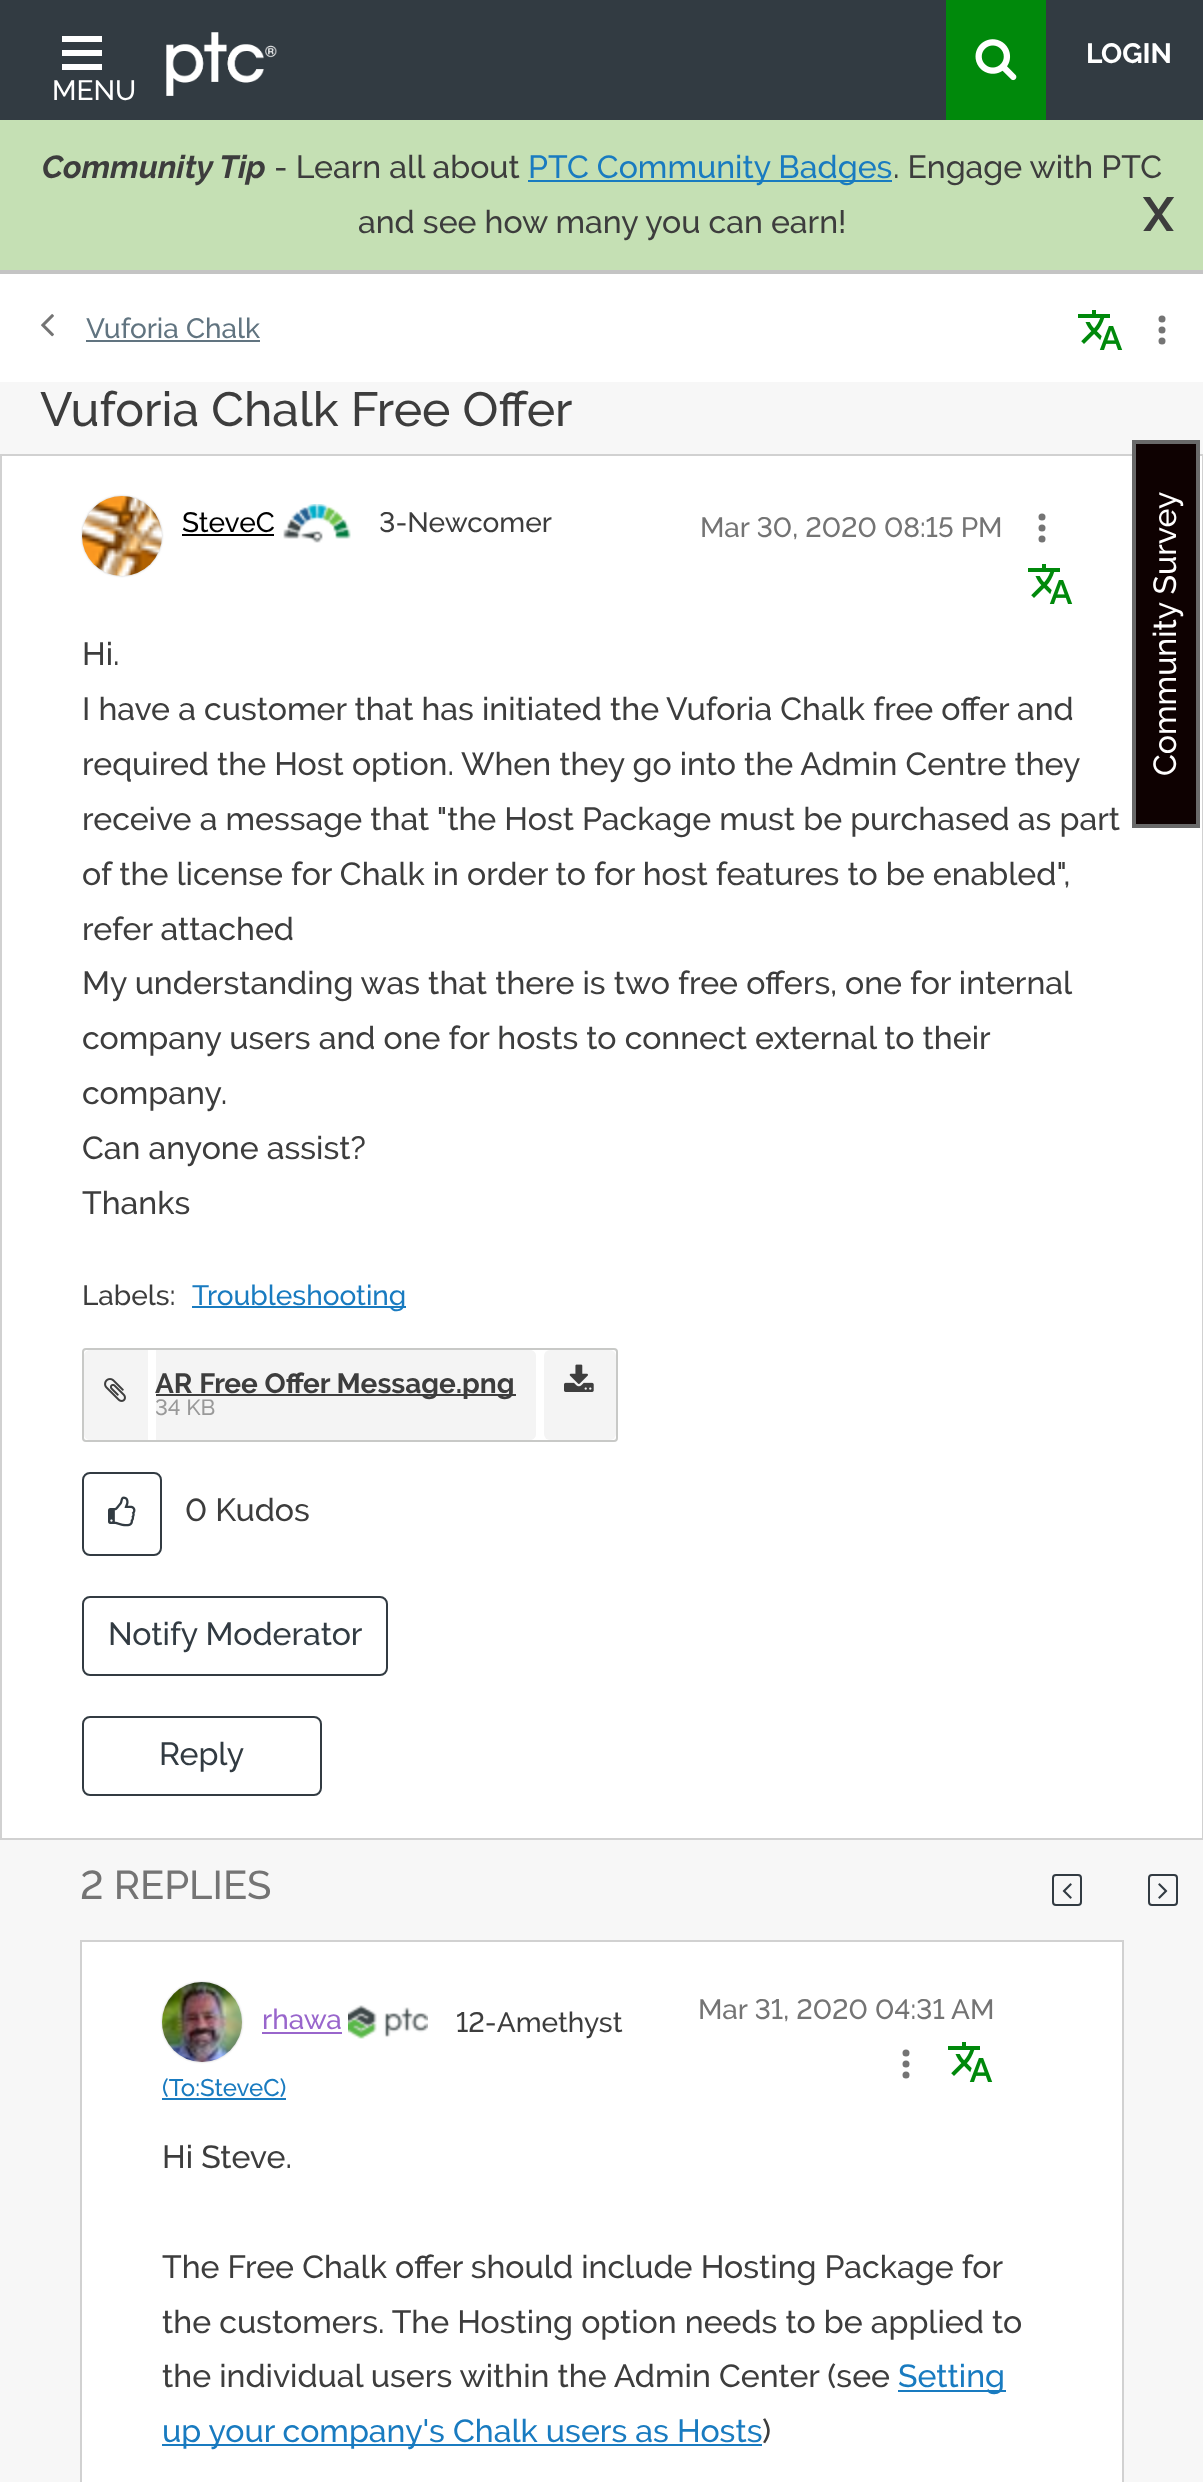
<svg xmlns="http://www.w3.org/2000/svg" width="1203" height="2482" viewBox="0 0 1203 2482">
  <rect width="100%" height="100%" fill="rgb(247,247,247)"/>
  <rect x="0" y="0" width="1203" height="120" fill="rgb(50,59,66)"/>
  <rect x="946" y="0" width="100" height="120" fill="rgb(0,137,11)"/>
  <image x="975" y="39" width="42" height="42" href="pic1.png"/>
  <text x="1086" y="63" font-family="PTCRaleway" font-size="28" font-weight="bold" fill="rgb(255,255,255)">LOGIN</text>
  <path d="M62 36H102V42H62ZM62 50H102V56H62ZM62 64H102V70H62Z" fill="rgb(255,255,255)" fill-rule="evenodd"/>
  <text x="52" y="100" font-family="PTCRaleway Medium" font-size="28" font-weight="500" fill="rgb(255,255,255)">MENU</text>
  <image x="166" y="32" width="111" height="64" href="pic2.png"/>
  <rect x="0" y="120" width="1203" height="150" fill="rgb(197,224,180)"/>
  <text x="42" y="178" font-family="PTCRaleway" font-size="32" font-weight="bold" font-style="italic" fill="rgb(61,61,61)">Community Tip</text>
  <text x="274" y="178" font-family="PTCRaleway Medium" font-size="32" font-weight="500" fill="rgb(61,61,61)">- Learn all about</text>
  <rect x="528" y="180" width="364" height="2" fill="rgb(25,123,192)"/>
  <text x="528" y="178" font-family="PTCRaleway Medium" font-size="32" font-weight="500" fill="rgb(25,123,192)">PTC Community Badges</text>
  <g font-family="PTCRaleway Medium" font-size="32" font-weight="500" fill="rgb(61,61,61)">
    <text x="893" y="178">. Engage with PTC</text>
    <text x="358" y="233">and see how many you can earn!</text>
  </g>
  <text x="1143" y="231" font-family="PTCRaleway" font-size="48" font-weight="bold" fill="rgb(61,61,61)">X</text>
  <rect x="0" y="274" width="1203" height="108" fill="rgb(255,255,255)"/>
  <rect x="0" y="270" width="1203" height="4" fill="rgb(196,196,196)"/>
  <image x="41" y="314" width="13" height="23" href="pic3.png"/>
  <text x="86" y="338" font-family="PTCRaleway Medium" font-size="28" font-weight="500" fill="rgb(97,116,128)">Vuforia Chalk</text>
  <rect x="86" y="340" width="174" height="2" fill="rgb(97,116,128)"/>
  <image x="1078" y="310" width="45" height="40" href="pic4.png"/>
  <circle cx="1162" cy="319" r="3.5" fill="rgb(116,116,116)"/>
  <circle cx="1162" cy="330" r="3.5" fill="rgb(116,116,116)"/>
  <circle cx="1162" cy="341" r="3.5" fill="rgb(116,116,116)"/>
  <text x="40" y="426" font-family="PTCRaleway Medium" font-size="48" font-weight="500" fill="rgb(61,61,61)">Vuforia Chalk Free Offer</text>
  <rect x="1" y="455" width="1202" height="1384" fill="rgb(255,255,255)" stroke="rgb(209,209,209)" stroke-width="2"/>
  <rect x="82" y="496" width="80" height="80" rx="40" fill="rgb(196,196,196)" filter="blur(1px)"/>
  <image x="82" y="496" width="80" height="80" href="pic5.png"/>
  <text x="182" y="532" font-family="PTCRaleway Medium" font-size="28" font-weight="500" fill="rgb(0,0,0)">SteveC</text>
  <rect x="182" y="534" width="92" height="2" fill="rgb(0,0,0)"/>
  <image x="283" y="504" width="68" height="39" href="pic6.png"/>
  <text x="379" y="532" font-family="PTCRaleway Medium" font-size="28" font-weight="500" fill="rgb(61,61,61)">3-Newcomer</text>
  <text x="700" y="537" font-family="PTCRaleway Medium" font-size="28" font-weight="500" fill="rgb(116,116,116)">Mar 30, 2020 08:15 PM</text>
  <circle cx="1042" cy="517" r="3.5" fill="rgb(116,116,116)"/>
  <circle cx="1042" cy="528" r="3.5" fill="rgb(116,116,116)"/>
  <circle cx="1042" cy="539" r="3.5" fill="rgb(116,116,116)"/>
  <image x="1028" y="564" width="45" height="40" href="pic4.png"/>
  <g font-family="PTCRaleway Medium" font-size="32" font-weight="500" fill="rgb(61,61,61)">
    <text>
      <tspan x="82" y="665">Hi.</tspan>
      <tspan x="82" y="720">I have a customer that has initiated the Vuforia Chalk free offer and</tspan>
      <tspan x="82" y="775">required the Host option. When they go into the Admin Centre they</tspan>
      <tspan x="82" y="830">receive a message that "the Host Package must be purchased as part</tspan>
      <tspan x="82" y="885">of the license for Chalk in order to for host features to be enabled",</tspan>
      <tspan x="82" y="940">refer attached</tspan>
      <tspan x="82" y="994">My understanding was that there is two free offers, one for internal</tspan>
      <tspan x="82" y="1049">company users and one for hosts to connect external to their</tspan>
      <tspan x="82" y="1104">company.</tspan>
      <tspan x="82" y="1159">Can anyone assist?</tspan>
      <tspan x="82" y="1214">Thanks</tspan>
    </text>
  </g>
  <text x="82" y="1305" font-family="PTCRaleway Medium" font-size="28" font-weight="500" fill="rgb(61,61,61)">Labels:</text>
  <rect x="192" y="1306" width="214" height="2" fill="rgb(25,123,192)"/>
  <text x="192" y="1305" font-family="PTCRaleway Medium" font-size="28" font-weight="500" fill="rgb(25,123,192)">Troubleshooting</text>
  <rect x="83" y="1349" width="534" height="92" rx="3" fill="none" stroke="rgb(200,201,199)" stroke-width="2"/>
  <path d="M90 1350H148V1440H90C86.5 1440 84 1437.5 84 1434V1356C84 1352.5 86.5 1350 90 1350Z" fill="rgb(244,244,244)"/>
  <image x="104" y="1378" width="22" height="24" href="pic7.png"/>
  <path d="M156 1350H530C533.5 1350 536 1352.5 536 1356V1434C536 1437.5 533.5 1440 530 1440H156Z" fill="rgb(244,244,244)"/>
  <rect x="156" y="1394" width="360" height="2" fill="rgb(62,62,62)"/>
  <text x="155" y="1393" font-family="PTCRaleway" font-size="28" font-weight="bold" fill="rgb(61,61,61)">AR Free Offer Message.png</text>
  <text x="155" y="1415" font-family="PTCRaleway Medium" font-size="22" font-weight="500" fill="rgb(153,153,153)">34 KB</text>
  <rect x="544" y="1350" width="72" height="90" rx="6" fill="rgb(244,244,244)"/>
  <image x="564" y="1364" width="30" height="28" href="pic8.png"/>
  <rect x="83" y="1473" width="78" height="82" rx="7" fill="none" stroke="rgb(50,59,66)" stroke-width="2"/>
  <image x="108" y="1496" width="28" height="31" href="pic9.png"/>
  <text x="185" y="1521" font-family="PTCRaleway Medium" font-size="32" font-weight="500" fill="rgb(61,61,61)">0 Kudos</text>
  <rect x="83" y="1597" width="304" height="78" rx="7" fill="none" stroke="rgb(50,59,66)" stroke-width="2"/>
  <text x="108" y="1645" font-family="PTCRaleway Medium" font-size="32" font-weight="500" fill="rgb(50,59,66)">Notify Moderator</text>
  <rect x="83" y="1717" width="238" height="78" rx="7" fill="none" stroke="rgb(50,59,66)" stroke-width="2"/>
  <text x="159" y="1765" font-family="PTCRaleway Medium" font-size="32" font-weight="500" fill="rgb(50,59,66)">Reply</text>
  <text x="80" y="1899" font-family="PTCRaleway Medium" font-size="40" font-weight="500" fill="rgb(116,116,116)">2 REPLIES</text>
  <rect x="1053" y="1875" width="28" height="30" rx="3" fill="none" stroke="rgb(50,59,66)" stroke-width="2"/>
  <image x="1062" y="1883" width="10" height="16" href="pic10.png"/>
  <rect x="1149" y="1875" width="28" height="30" rx="3" fill="none" stroke="rgb(50,59,66)" stroke-width="2"/>
  <image x="1158" y="1883" width="10" height="16" href="pic11.png"/>
  <rect x="81" y="1941" width="1042" height="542" fill="rgb(255,255,255)" stroke="rgb(209,209,209)" stroke-width="2"/>
  <rect x="162" y="1982" width="80" height="80" rx="40" fill="rgb(196,196,196)" filter="blur(1px)"/>
  <image x="162" y="1982" width="80" height="80" href="pic12.png"/>
  <text x="262" y="2029" font-family="PTCRaleway Medium" font-size="28" font-weight="500" fill="rgb(153,102,204)">rhawa</text>
  <rect x="262" y="2032" width="80" height="2" fill="rgb(153,102,204)"/>
  <image x="348" y="2005" width="80" height="34" href="pic13.png"/>
  <text x="456" y="2032" font-family="PTCRaleway Medium" font-size="28" font-weight="500" fill="rgb(61,61,61)">12-Amethyst</text>
  <text x="162" y="2096" font-family="PTCRaleway Medium" font-size="24" font-weight="500" fill="rgb(25,123,192)">(To:SteveC)</text>
  <rect x="162" y="2098" width="124" height="2" fill="rgb(25,123,192)"/>
  <text x="698" y="2019" font-family="PTCRaleway Medium" font-size="28" font-weight="500" fill="rgb(116,116,116)">Mar 31, 2020 04:31 AM</text>
  <circle cx="906" cy="2053" r="3.5" fill="rgb(116,116,116)"/>
  <circle cx="906" cy="2064" r="3.5" fill="rgb(116,116,116)"/>
  <circle cx="906" cy="2075" r="3.5" fill="rgb(116,116,116)"/>
  <image x="948" y="2042" width="45" height="40" href="pic4.png"/>
  <g font-family="PTCRaleway Medium" font-size="32" font-weight="500" fill="rgb(61,61,61)">
    <text x="162" y="2168">Hi Steve.</text>
    <text>
      <tspan x="162" y="2278">The Free Chalk offer should include Hosting Package for</tspan>
      <tspan x="162" y="2333">the customers. The Hosting option needs to be applied to</tspan>
      <tspan x="162" y="2387">the individual users within the Admin Center (see</tspan>
    </text>
  </g>
  <rect x="898" y="2390" width="108" height="2" fill="rgb(25,123,192)"/>
  <text x="898" y="2387" font-family="PTCRaleway Medium" font-size="32" font-weight="500" fill="rgb(25,123,192)">Setting</text>
  <rect x="162" y="2444" width="600" height="2" fill="rgb(25,123,192)"/>
  <text x="162" y="2442" font-family="PTCRaleway Medium" font-size="32" font-weight="500" fill="rgb(25,123,192)">up your company's Chalk users as Hosts</text>
  <text x="762" y="2442" font-family="PTCRaleway Medium" font-size="32" font-weight="500" fill="rgb(61,61,61)">)</text>
  <rect x="1136" y="444" width="60" height="380" fill="rgb(14,1,1)"/>
  <path d="M1134 826V442H1198V826Z" fill="none" stroke="rgb(105,105,105)" stroke-width="4"/>
  <text x="1176" y="776" transform="rotate(-90 1176 776)" font-family="PTCRaleway Medium" font-size="32" font-weight="500" fill="rgb(255,255,255)">Community Survey</text>
</svg>
